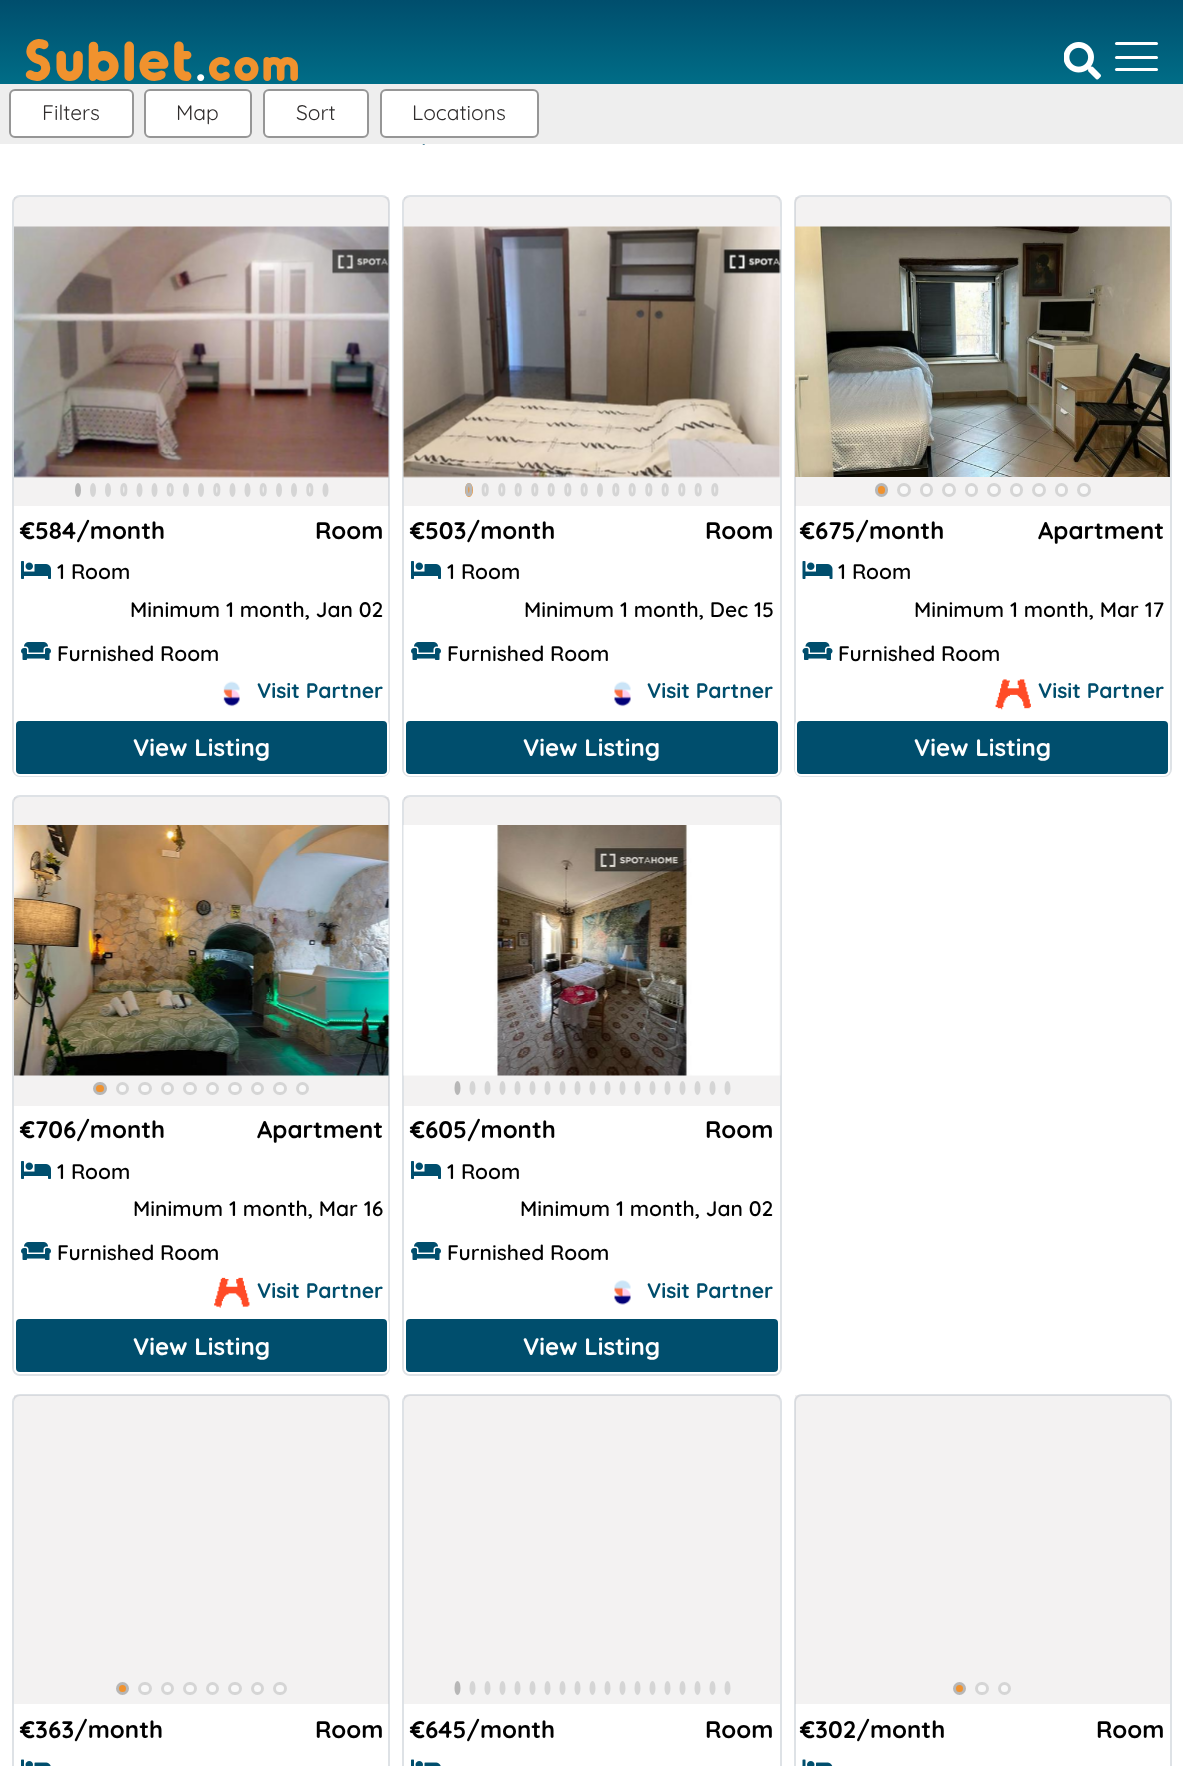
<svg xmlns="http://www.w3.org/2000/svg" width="1183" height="1766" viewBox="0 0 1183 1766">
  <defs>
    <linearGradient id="g1" gradientUnits="userSpaceOnUse" x1="0" y1="0" x2="0" y2="84"><stop offset="0" stop-color="rgb(0,78,109)"/><stop offset="1" stop-color="rgb(0,109,135)"/></linearGradient>
  </defs>
  <rect width="100%" height="100%" fill="rgb(255,255,255)"/>
  <rect x="0" y="0" width="1183" height="84" fill="url(#g1)"/>
  <text x="24" y="81" font-family="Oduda" font-size="60" font-weight="bold" letter-spacing="3" fill="rgb(240,146,46)">Sublet</text>
  <text x="196" y="81" font-family="Oduda" font-size="48" font-weight="bold" letter-spacing="3" fill="rgb(255,255,255)">.</text>
  <text x="208" y="81" font-family="Oduda" font-size="48" font-weight="bold" letter-spacing="3" fill="rgb(240,146,46)">com</text>
  <image x="1064" y="42" width="37" height="38" href="pic1.png"/>
  <rect x="1115" y="42" width="43" height="3" rx="1.5" fill="rgb(255,255,255)"/>
  <rect x="1115" y="56" width="43" height="3" rx="1.5" fill="rgb(255,255,255)"/>
  <rect x="1115" y="68" width="43" height="3" rx="1.5" fill="rgb(255,255,255)"/>
  <rect x="0" y="84" width="1183" height="60" fill="rgb(238,238,238)"/>
  <rect x="10" y="90" width="123" height="47" rx="5" fill="rgb(255,255,255)" stroke="rgb(150,150,150)" stroke-width="2"/>
  <text x="42" y="120" font-family="Quicksand" font-size="21" fill="rgb(47,44,44)">Filters</text>
  <rect x="145" y="90" width="106" height="47" rx="5" fill="rgb(255,255,255)" stroke="rgb(150,150,150)" stroke-width="2"/>
  <text x="176" y="120" font-family="Quicksand" font-size="21" fill="rgb(47,44,44)">Map</text>
  <rect x="264" y="90" width="104" height="47" rx="5" fill="rgb(255,255,255)" stroke="rgb(150,150,150)" stroke-width="2"/>
  <text x="296" y="120" font-family="Quicksand" font-size="21" fill="rgb(47,44,44)">Sort</text>
  <rect x="381" y="90" width="157" height="47" rx="5" fill="rgb(255,255,255)" stroke="rgb(150,150,150)" stroke-width="2"/>
  <text x="412" y="120" font-family="Quicksand" font-size="21" fill="rgb(47,44,44)">Locations</text>
  <image x="422" y="144" width="3" height="1" href="pic2.png"/>
  <rect x="13" y="196" width="376" height="580" rx="7" fill="none" stroke="rgb(222,226,230)" stroke-width="2"/>
  <rect x="14" y="197" width="375" height="309" fill="rgba(193,192,192,0.2)"/>
  <image x="14" y="226" width="375" height="252" href="pic3.png"/>
  <ellipse cx="78" cy="490" rx="3" ry="7" fill="rgb(183,183,183)"/>
  <ellipse cx="93" cy="490" rx="3" ry="7" fill="rgb(213,213,213)"/>
  <ellipse cx="108" cy="490" rx="3" ry="7" fill="rgb(213,213,213)"/>
  <ellipse cx="124" cy="490" rx="1" ry="4" fill="rgb(249,249,249)"/>
  <path d="M124 484.5C126.5 484.5 126.5 495 124 495C121 495 121 484.5 124 484.5Z" fill="none" stroke="rgb(213,213,213)" stroke-width="3"/>
  <ellipse cx="139.5" cy="490" rx="3" ry="7" fill="rgb(213,213,213)"/>
  <ellipse cx="154.5" cy="490" rx="3" ry="7" fill="rgb(213,213,213)"/>
  <ellipse cx="170" cy="490" rx="1" ry="4" fill="rgb(249,249,249)"/>
  <path d="M170 484.5C173 484.5 173 495 170 495C167.5 495 167.5 484.5 170 484.5Z" fill="none" stroke="rgb(213,213,213)" stroke-width="3"/>
  <ellipse cx="186" cy="490" rx="3" ry="7" fill="rgb(213,213,213)"/>
  <ellipse cx="201" cy="490" rx="3" ry="7" fill="rgb(213,213,213)"/>
  <ellipse cx="217" cy="490" rx="1" ry="4" fill="rgb(249,249,249)"/>
  <path d="M217 484.5C219.5 484.5 219.5 495 217 495C214 495 214 484.5 217 484.5Z" fill="none" stroke="rgb(213,213,213)" stroke-width="3"/>
  <ellipse cx="232.5" cy="490" rx="3" ry="7" fill="rgb(213,213,213)"/>
  <ellipse cx="247.5" cy="490" rx="3" ry="7" fill="rgb(213,213,213)"/>
  <ellipse cx="263" cy="490" rx="1" ry="4" fill="rgb(249,249,249)"/>
  <path d="M263 484.5C266 484.5 266 495 263 495C260.5 495 260.5 484.5 263 484.5Z" fill="none" stroke="rgb(213,213,213)" stroke-width="3"/>
  <ellipse cx="279" cy="490" rx="3" ry="7" fill="rgb(213,213,213)"/>
  <ellipse cx="294" cy="490" rx="3" ry="7" fill="rgb(213,213,213)"/>
  <ellipse cx="310" cy="490" rx="1" ry="4" fill="rgb(249,249,249)"/>
  <path d="M310 484.5C312.5 484.5 312.5 495 310 495C307 495 307 484.5 310 484.5Z" fill="none" stroke="rgb(213,213,213)" stroke-width="3"/>
  <ellipse cx="325.5" cy="490" rx="3" ry="7" fill="rgb(213,213,213)"/>
  <g font-family="Quicksand" font-size="24" font-weight="bold" fill="rgb(0,0,0)">
    <text x="20" y="539">€584/month</text>
    <text x="315" y="539">Room</text>
  </g>
  <image x="21" y="561" width="30" height="18" href="pic4.png"/>
  <g font-family="Quicksand" font-size="21" font-weight="600" fill="rgb(0,0,0)">
    <text x="57" y="579">1 Room</text>
    <text x="130" y="617">Minimum 1 month, Jan 02</text>
  </g>
  <image x="21" y="642" width="30" height="18" href="pic5.png"/>
  <text x="57" y="661" font-family="Quicksand" font-size="21" font-weight="600" fill="rgb(0,0,0)">Furnished Room</text>
  <image x="223" y="681" width="17" height="26" href="pic6.png"/>
  <text x="257" y="698" font-family="Quicksand" font-size="21" font-weight="bold" fill="rgb(0,78,109)">Visit Partner</text>
  <rect x="15" y="720" width="373" height="55" rx="5" fill="rgb(0,78,109)" stroke="rgb(255,255,255)" stroke-width="2"/>
  <text x="133" y="756" font-family="Quicksand" font-size="24" font-weight="bold" fill="rgb(255,255,255)">View Listing</text>
  <rect x="403" y="196" width="378" height="580" rx="7" fill="none" stroke="rgb(222,226,230)" stroke-width="2"/>
  <rect x="404" y="197" width="376" height="309" fill="rgba(193,192,192,0.2)"/>
  <image x="403" y="226" width="378" height="252" href="pic7.png"/>
  <ellipse cx="469" cy="490" rx="4" ry="7" fill="rgb(240,146,46)"/>
  <path d="M469 484.5C471.5 484.5 471.5 495 469 495C466 495 466 484.5 469 484.5Z" fill="none" stroke="rgb(183,183,183)" stroke-width="3"/>
  <ellipse cx="485" cy="490" rx="1" ry="4" fill="rgb(249,249,249)"/>
  <path d="M485 484.5C488 484.5 488 495 485 495C482.5 495 482.5 484.5 485 484.5Z" fill="none" stroke="rgb(213,213,213)" stroke-width="3"/>
  <ellipse cx="502" cy="490" rx="1" ry="4" fill="rgb(249,249,249)"/>
  <path d="M502 484.5C504.5 484.5 504.5 495 502 495C499 495 499 484.5 502 484.5Z" fill="none" stroke="rgb(213,213,213)" stroke-width="3"/>
  <ellipse cx="518" cy="490" rx="1" ry="4" fill="rgb(249,249,249)"/>
  <path d="M518 484.5C521 484.5 521 495 518 495C515.5 495 515.5 484.5 518 484.5Z" fill="none" stroke="rgb(213,213,213)" stroke-width="3"/>
  <ellipse cx="535" cy="490" rx="1" ry="4" fill="rgb(249,249,249)"/>
  <path d="M535 484.5C537.5 484.5 537.5 495 535 495C532 495 532 484.5 535 484.5Z" fill="none" stroke="rgb(213,213,213)" stroke-width="3"/>
  <ellipse cx="551" cy="490" rx="1" ry="4" fill="rgb(249,249,249)"/>
  <path d="M551 484.5C554 484.5 554 495 551 495C548.5 495 548.5 484.5 551 484.5Z" fill="none" stroke="rgb(213,213,213)" stroke-width="3"/>
  <ellipse cx="568" cy="490" rx="1" ry="4" fill="rgb(249,249,249)"/>
  <path d="M568 484.5C570.5 484.5 570.5 495 568 495C565 495 565 484.5 568 484.5Z" fill="none" stroke="rgb(213,213,213)" stroke-width="3"/>
  <ellipse cx="584" cy="490" rx="1" ry="4" fill="rgb(249,249,249)"/>
  <path d="M584 484.5C587 484.5 587 495 584 495C581.5 495 581.5 484.5 584 484.5Z" fill="none" stroke="rgb(213,213,213)" stroke-width="3"/>
  <ellipse cx="600" cy="490" rx="3" ry="7" fill="rgb(213,213,213)"/>
  <ellipse cx="616" cy="490" rx="1" ry="4" fill="rgb(249,249,249)"/>
  <path d="M616 484.5C618.5 484.5 618.5 495 616 495C613 495 613 484.5 616 484.5Z" fill="none" stroke="rgb(213,213,213)" stroke-width="3"/>
  <ellipse cx="632" cy="490" rx="1" ry="4" fill="rgb(249,249,249)"/>
  <path d="M632 484.5C635 484.5 635 495 632 495C629.5 495 629.5 484.5 632 484.5Z" fill="none" stroke="rgb(213,213,213)" stroke-width="3"/>
  <ellipse cx="649" cy="490" rx="1" ry="4" fill="rgb(249,249,249)"/>
  <path d="M649 484.5C651.5 484.5 651.5 495 649 495C646 495 646 484.5 649 484.5Z" fill="none" stroke="rgb(213,213,213)" stroke-width="3"/>
  <ellipse cx="665" cy="490" rx="1" ry="4" fill="rgb(249,249,249)"/>
  <path d="M665 484.5C668 484.5 668 495 665 495C662.5 495 662.5 484.5 665 484.5Z" fill="none" stroke="rgb(213,213,213)" stroke-width="3"/>
  <ellipse cx="682" cy="490" rx="1" ry="4" fill="rgb(249,249,249)"/>
  <path d="M682 484.5C684.5 484.5 684.5 495 682 495C679 495 679 484.5 682 484.5Z" fill="none" stroke="rgb(213,213,213)" stroke-width="3"/>
  <ellipse cx="698" cy="490" rx="1" ry="4" fill="rgb(249,249,249)"/>
  <path d="M698 484.5C701 484.5 701 495 698 495C695.5 495 695.5 484.5 698 484.5Z" fill="none" stroke="rgb(213,213,213)" stroke-width="3"/>
  <ellipse cx="715" cy="490" rx="1" ry="4" fill="rgb(249,249,249)"/>
  <path d="M715 484.5C717.5 484.5 717.5 495 715 495C712 495 712 484.5 715 484.5Z" fill="none" stroke="rgb(213,213,213)" stroke-width="3"/>
  <g font-family="Quicksand" font-size="24" font-weight="bold" fill="rgb(0,0,0)">
    <text x="410" y="539">€503/month</text>
    <text x="705" y="539">Room</text>
  </g>
  <image x="411" y="561" width="30" height="18" href="pic4.png"/>
  <g font-family="Quicksand" font-size="21" font-weight="600" fill="rgb(0,0,0)">
    <text x="447" y="579">1 Room</text>
    <text x="524" y="617">Minimum 1 month, Dec 15</text>
  </g>
  <image x="411" y="642" width="30" height="18" href="pic5.png"/>
  <text x="447" y="661" font-family="Quicksand" font-size="21" font-weight="600" fill="rgb(0,0,0)">Furnished Room</text>
  <image x="614" y="681" width="17" height="26" href="pic8.png"/>
  <text x="647" y="698" font-family="Quicksand" font-size="21" font-weight="bold" fill="rgb(0,78,109)">Visit Partner</text>
  <rect x="405" y="720" width="374" height="55" rx="5" fill="rgb(0,78,109)" stroke="rgb(255,255,255)" stroke-width="2"/>
  <text x="523" y="756" font-family="Quicksand" font-size="24" font-weight="bold" fill="rgb(255,255,255)">View Listing</text>
  <rect x="795" y="196" width="376" height="580" rx="7" fill="none" stroke="rgb(222,226,230)" stroke-width="2"/>
  <rect x="795" y="197" width="375" height="309" fill="rgba(193,192,192,0.2)"/>
  <image x="795" y="226" width="375" height="251" href="pic9.png"/>
  <rect x="876.5" y="484.5" width="10" height="11" rx="5" fill="rgb(240,146,46)" stroke="rgb(183,183,183)" stroke-width="3"/>
  <circle cx="904" cy="490" r="5.5" fill="rgb(249,249,249)" stroke="rgb(213,213,213)" stroke-width="3"/>
  <rect x="921.5" y="484.5" width="10" height="11" rx="5" fill="rgb(249,249,249)" stroke="rgb(213,213,213)" stroke-width="3"/>
  <circle cx="949" cy="490" r="5.5" fill="rgb(249,249,249)" stroke="rgb(213,213,213)" stroke-width="3"/>
  <rect x="966.5" y="484.5" width="10" height="11" rx="5" fill="rgb(249,249,249)" stroke="rgb(213,213,213)" stroke-width="3"/>
  <circle cx="994" cy="490" r="5.5" fill="rgb(249,249,249)" stroke="rgb(213,213,213)" stroke-width="3"/>
  <rect x="1011.5" y="484.5" width="10" height="11" rx="5" fill="rgb(249,249,249)" stroke="rgb(213,213,213)" stroke-width="3"/>
  <circle cx="1039" cy="490" r="5.5" fill="rgb(249,249,249)" stroke="rgb(213,213,213)" stroke-width="3"/>
  <rect x="1056.5" y="484.5" width="10" height="11" rx="5" fill="rgb(249,249,249)" stroke="rgb(213,213,213)" stroke-width="3"/>
  <circle cx="1084" cy="490" r="5.5" fill="rgb(249,249,249)" stroke="rgb(213,213,213)" stroke-width="3"/>
  <g font-family="Quicksand" font-size="24" font-weight="bold" fill="rgb(0,0,0)">
    <text x="800" y="539">€675/month</text>
    <text x="1038" y="539">Apartment</text>
  </g>
  <image x="802" y="561" width="31" height="18" href="pic10.png"/>
  <g font-family="Quicksand" font-size="21" font-weight="600" fill="rgb(0,0,0)">
    <text x="838" y="579">1 Room</text>
    <text x="914" y="617">Minimum 1 month, Mar 17</text>
  </g>
  <image x="802" y="642" width="31" height="18" href="pic11.png"/>
  <text x="838" y="661" font-family="Quicksand" font-size="21" font-weight="600" fill="rgb(0,0,0)">Furnished Room</text>
  <image x="995" y="679" width="36" height="31" href="pic12.png"/>
  <text x="1038" y="698" font-family="Quicksand" font-size="21" font-weight="bold" fill="rgb(0,78,109)">Visit Partner</text>
  <rect x="796" y="720" width="373" height="55" rx="5" fill="rgb(0,78,109)" stroke="rgb(255,255,255)" stroke-width="2"/>
  <text x="914" y="756" font-family="Quicksand" font-size="24" font-weight="bold" fill="rgb(255,255,255)">View Listing</text>
  <rect x="13" y="796" width="376" height="579" rx="7" fill="none" stroke="rgb(222,226,230)" stroke-width="2"/>
  <rect x="14" y="797" width="375" height="309" fill="rgba(193,192,192,0.2)"/>
  <image x="14" y="825" width="375" height="251" href="pic13.png"/>
  <rect x="94.5" y="1083.5" width="11" height="10" rx="5" fill="rgb(240,146,46)" stroke="rgb(183,183,183)" stroke-width="3"/>
  <circle cx="122.5" cy="1088.5" r="5" fill="rgb(249,249,249)" stroke="rgb(213,213,213)" stroke-width="3"/>
  <rect x="139.5" y="1083.5" width="11" height="10" rx="5" fill="rgb(249,249,249)" stroke="rgb(213,213,213)" stroke-width="3"/>
  <circle cx="167.5" cy="1088.5" r="5" fill="rgb(249,249,249)" stroke="rgb(213,213,213)" stroke-width="3"/>
  <rect x="184.5" y="1083.5" width="11" height="10" rx="5" fill="rgb(249,249,249)" stroke="rgb(213,213,213)" stroke-width="3"/>
  <circle cx="212.5" cy="1088.5" r="5" fill="rgb(249,249,249)" stroke="rgb(213,213,213)" stroke-width="3"/>
  <rect x="229.5" y="1083.5" width="11" height="10" rx="5" fill="rgb(249,249,249)" stroke="rgb(213,213,213)" stroke-width="3"/>
  <circle cx="257.5" cy="1088.5" r="5" fill="rgb(249,249,249)" stroke="rgb(213,213,213)" stroke-width="3"/>
  <rect x="274.5" y="1083.5" width="11" height="10" rx="5" fill="rgb(249,249,249)" stroke="rgb(213,213,213)" stroke-width="3"/>
  <circle cx="302.5" cy="1088.5" r="5" fill="rgb(249,249,249)" stroke="rgb(213,213,213)" stroke-width="3"/>
  <g font-family="Quicksand" font-size="24" font-weight="bold" fill="rgb(0,0,0)">
    <text x="20" y="1138">€706/month</text>
    <text x="257" y="1138">Apartment</text>
  </g>
  <image x="21" y="1161" width="30" height="18" href="pic4.png"/>
  <g font-family="Quicksand" font-size="21" font-weight="600" fill="rgb(0,0,0)">
    <text x="57" y="1179">1 Room</text>
    <text x="133" y="1216">Minimum 1 month, Mar 16</text>
  </g>
  <image x="21" y="1242" width="30" height="18" href="pic5.png"/>
  <text x="57" y="1260" font-family="Quicksand" font-size="21" font-weight="600" fill="rgb(0,0,0)">Furnished Room</text>
  <image x="214" y="1277" width="36" height="31" href="pic14.png"/>
  <text x="257" y="1298" font-family="Quicksand" font-size="21" font-weight="bold" fill="rgb(0,78,109)">Visit Partner</text>
  <rect x="15" y="1318" width="373" height="55" rx="5" fill="rgb(0,78,109)" stroke="rgb(255,255,255)" stroke-width="2"/>
  <text x="133" y="1355" font-family="Quicksand" font-size="24" font-weight="bold" fill="rgb(255,255,255)">View Listing</text>
  <rect x="403" y="796" width="378" height="579" rx="7" fill="none" stroke="rgb(222,226,230)" stroke-width="2"/>
  <rect x="404" y="797" width="376" height="309" fill="rgba(193,192,192,0.2)"/>
  <image x="403" y="825" width="378" height="251" href="pic15.png"/>
  <ellipse cx="457.5" cy="1088" rx="3" ry="7" fill="rgb(183,183,183)"/>
  <ellipse cx="472.5" cy="1088" rx="3" ry="7" fill="rgb(213,213,213)"/>
  <ellipse cx="487.5" cy="1088" rx="3" ry="7" fill="rgb(213,213,213)"/>
  <ellipse cx="502.5" cy="1088" rx="3" ry="7" fill="rgb(213,213,213)"/>
  <ellipse cx="517.5" cy="1088" rx="3" ry="7" fill="rgb(213,213,213)"/>
  <ellipse cx="532.5" cy="1088" rx="3" ry="7" fill="rgb(213,213,213)"/>
  <ellipse cx="547.5" cy="1088" rx="3" ry="7" fill="rgb(213,213,213)"/>
  <ellipse cx="562.5" cy="1088" rx="3" ry="7" fill="rgb(213,213,213)"/>
  <ellipse cx="577.5" cy="1088" rx="3" ry="7" fill="rgb(213,213,213)"/>
  <ellipse cx="592.5" cy="1088" rx="3" ry="7" fill="rgb(213,213,213)"/>
  <ellipse cx="607.5" cy="1088" rx="3" ry="7" fill="rgb(213,213,213)"/>
  <ellipse cx="622.5" cy="1088" rx="3" ry="7" fill="rgb(213,213,213)"/>
  <ellipse cx="637.5" cy="1088" rx="3" ry="7" fill="rgb(213,213,213)"/>
  <ellipse cx="652.5" cy="1088" rx="3" ry="7" fill="rgb(213,213,213)"/>
  <ellipse cx="667.5" cy="1088" rx="3" ry="7" fill="rgb(213,213,213)"/>
  <ellipse cx="682.5" cy="1088" rx="3" ry="7" fill="rgb(213,213,213)"/>
  <ellipse cx="697.5" cy="1088" rx="3" ry="7" fill="rgb(213,213,213)"/>
  <ellipse cx="712.5" cy="1088" rx="3" ry="7" fill="rgb(213,213,213)"/>
  <ellipse cx="727.5" cy="1088" rx="3" ry="7" fill="rgb(213,213,213)"/>
  <g font-family="Quicksand" font-size="24" font-weight="bold" fill="rgb(0,0,0)">
    <text x="410" y="1138">€605/month</text>
    <text x="705" y="1138">Room</text>
  </g>
  <image x="411" y="1161" width="30" height="18" href="pic4.png"/>
  <g font-family="Quicksand" font-size="21" font-weight="600" fill="rgb(0,0,0)">
    <text x="447" y="1179">1 Room</text>
    <text x="520" y="1216">Minimum 1 month, Jan 02</text>
  </g>
  <image x="411" y="1242" width="30" height="18" href="pic5.png"/>
  <text x="447" y="1260" font-family="Quicksand" font-size="21" font-weight="600" fill="rgb(0,0,0)">Furnished Room</text>
  <image x="614" y="1280" width="17" height="25" href="pic16.png"/>
  <text x="647" y="1298" font-family="Quicksand" font-size="21" font-weight="bold" fill="rgb(0,78,109)">Visit Partner</text>
  <rect x="405" y="1318" width="374" height="55" rx="5" fill="rgb(0,78,109)" stroke="rgb(255,255,255)" stroke-width="2"/>
  <text x="523" y="1355" font-family="Quicksand" font-size="24" font-weight="bold" fill="rgb(255,255,255)">View Listing</text>
  <rect x="13" y="1395" width="376" height="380" rx="7" fill="none" stroke="rgb(222,226,230)" stroke-width="2"/>
  <rect x="14" y="1395" width="375" height="309" fill="rgba(193,192,192,0.2)"/>
  <circle cx="122.5" cy="1688.5" r="5" fill="rgb(240,146,46)" stroke="rgb(183,183,183)" stroke-width="3"/>
  <rect x="139.5" y="1683.5" width="11" height="10" rx="5" fill="rgb(249,249,249)" stroke="rgb(213,213,213)" stroke-width="3"/>
  <circle cx="167.5" cy="1688.5" r="5" fill="rgb(249,249,249)" stroke="rgb(213,213,213)" stroke-width="3"/>
  <rect x="184.5" y="1683.5" width="11" height="10" rx="5" fill="rgb(249,249,249)" stroke="rgb(213,213,213)" stroke-width="3"/>
  <circle cx="212.5" cy="1688.5" r="5" fill="rgb(249,249,249)" stroke="rgb(213,213,213)" stroke-width="3"/>
  <rect x="229.5" y="1683.5" width="11" height="10" rx="5" fill="rgb(249,249,249)" stroke="rgb(213,213,213)" stroke-width="3"/>
  <circle cx="257.5" cy="1688.5" r="5" fill="rgb(249,249,249)" stroke="rgb(213,213,213)" stroke-width="3"/>
  <rect x="274.5" y="1683.5" width="11" height="10" rx="5" fill="rgb(249,249,249)" stroke="rgb(213,213,213)" stroke-width="3"/>
  <g font-family="Quicksand" font-size="24" font-weight="bold" fill="rgb(0,0,0)">
    <text x="20" y="1738">€363/month</text>
    <text x="315" y="1738">Room</text>
  </g>
  <image x="21" y="1759" width="30" height="7" href="pic17.png"/>
  <rect x="403" y="1395" width="378" height="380" rx="7" fill="none" stroke="rgb(222,226,230)" stroke-width="2"/>
  <rect x="404" y="1395" width="376" height="309" fill="rgba(193,192,192,0.2)"/>
  <ellipse cx="457.5" cy="1688" rx="3" ry="7" fill="rgb(183,183,183)"/>
  <ellipse cx="472.5" cy="1688" rx="3" ry="7" fill="rgb(213,213,213)"/>
  <ellipse cx="487.5" cy="1688" rx="3" ry="7" fill="rgb(213,213,213)"/>
  <ellipse cx="502.5" cy="1688" rx="3" ry="7" fill="rgb(213,213,213)"/>
  <ellipse cx="517.5" cy="1688" rx="3" ry="7" fill="rgb(213,213,213)"/>
  <ellipse cx="532.5" cy="1688" rx="3" ry="7" fill="rgb(213,213,213)"/>
  <ellipse cx="547.5" cy="1688" rx="3" ry="7" fill="rgb(213,213,213)"/>
  <ellipse cx="562.5" cy="1688" rx="3" ry="7" fill="rgb(213,213,213)"/>
  <ellipse cx="577.5" cy="1688" rx="3" ry="7" fill="rgb(213,213,213)"/>
  <ellipse cx="592.5" cy="1688" rx="3" ry="7" fill="rgb(213,213,213)"/>
  <ellipse cx="607.5" cy="1688" rx="3" ry="7" fill="rgb(213,213,213)"/>
  <ellipse cx="622.5" cy="1688" rx="3" ry="7" fill="rgb(213,213,213)"/>
  <ellipse cx="637.5" cy="1688" rx="3" ry="7" fill="rgb(213,213,213)"/>
  <ellipse cx="652.5" cy="1688" rx="3" ry="7" fill="rgb(213,213,213)"/>
  <ellipse cx="667.5" cy="1688" rx="3" ry="7" fill="rgb(213,213,213)"/>
  <ellipse cx="682.5" cy="1688" rx="3" ry="7" fill="rgb(213,213,213)"/>
  <ellipse cx="697.5" cy="1688" rx="3" ry="7" fill="rgb(213,213,213)"/>
  <ellipse cx="712.5" cy="1688" rx="3" ry="7" fill="rgb(213,213,213)"/>
  <ellipse cx="727.5" cy="1688" rx="3" ry="7" fill="rgb(213,213,213)"/>
  <g font-family="Quicksand" font-size="24" font-weight="bold" fill="rgb(0,0,0)">
    <text x="410" y="1738">€645/month</text>
    <text x="705" y="1738">Room</text>
  </g>
  <image x="411" y="1759" width="30" height="7" href="pic17.png"/>
  <rect x="795" y="1395" width="376" height="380" rx="7" fill="none" stroke="rgb(222,226,230)" stroke-width="2"/>
  <rect x="795" y="1395" width="375" height="309" fill="rgba(193,192,192,0.2)"/>
  <circle cx="959.5" cy="1688.5" r="5" fill="rgb(240,146,46)" stroke="rgb(183,183,183)" stroke-width="3"/>
  <rect x="976.5" y="1683.5" width="11" height="10" rx="5" fill="rgb(249,249,249)" stroke="rgb(213,213,213)" stroke-width="3"/>
  <circle cx="1004.5" cy="1688.5" r="5" fill="rgb(249,249,249)" stroke="rgb(213,213,213)" stroke-width="3"/>
  <g font-family="Quicksand" font-size="24" font-weight="bold" fill="rgb(0,0,0)">
    <text x="800" y="1738">€302/month</text>
    <text x="1096" y="1738">Room</text>
  </g>
  <image x="802" y="1759" width="31" height="7" href="pic18.png"/>
</svg>
